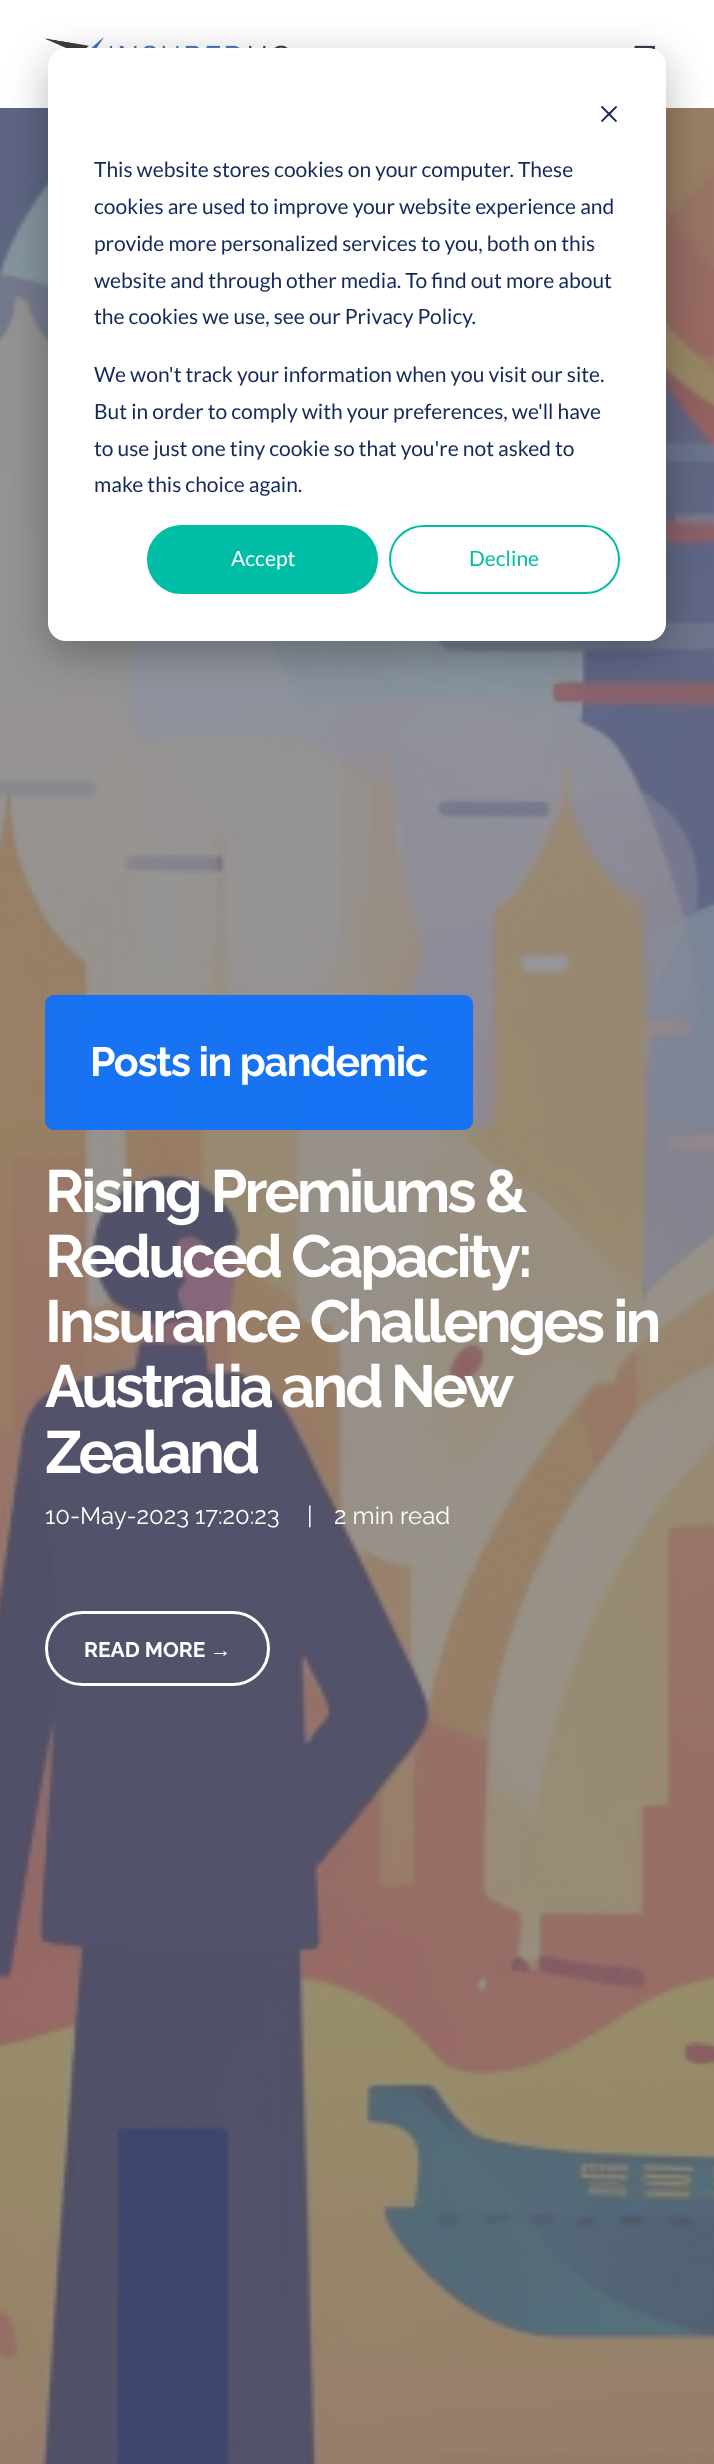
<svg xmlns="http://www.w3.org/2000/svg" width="714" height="2464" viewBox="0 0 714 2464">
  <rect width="100%" height="100%" fill="rgb(153,158,167)"/>
  <rect x="0" y="0" width="714" height="108" fill="rgb(255,255,255)"/>
  <image x="45" y="37" width="243" height="11" href="pic1.png"/>
  <image x="634" y="45" width="22" height="5" href="pic2.png"/>
  <image x="0" y="108" width="714" height="2356" href="pic3.png"/>
  <rect x="48" y="60" width="618" height="593" rx="18" fill="rgba(0,0,0,0.28)" filter="blur(21px)"/>
  <rect x="48" y="48" width="618" height="593" rx="18" fill="rgb(255,255,255)"/>
  <image x="601" y="106" width="16" height="16" href="pic4.png"/>
  <g font-family="Lato" font-size="21" fill="rgb(21,41,90)">
    <text>
      <tspan x="94" y="177">This website stores cookies on your computer. These</tspan>
      <tspan x="94" y="214">cookies are used to improve your website experience and</tspan>
      <tspan x="94" y="251">provide more personalized services to you, both on this</tspan>
      <tspan x="94" y="288">website and through other media. To find out more about</tspan>
      <tspan x="94" y="324">the cookies we use, see our Privacy Policy.</tspan>
    </text>
    <text>
      <tspan x="94" y="382">We won't track your information when you visit our site.</tspan>
      <tspan x="94" y="419">But in order to comply with your preferences, we'll have</tspan>
      <tspan x="94" y="456">to use just one tiny cookie so that you're not asked to</tspan>
      <tspan x="94" y="492">make this choice again.</tspan>
    </text>
  </g>
  <rect x="148" y="526" width="229" height="67" rx="33.5" fill="rgb(0,189,165)" stroke="rgb(0,189,165)" stroke-width="2"/>
  <text x="231" y="566" font-family="Lato" font-size="21" fill="rgb(255,255,255)">Accept</text>
  <rect x="390" y="526" width="229" height="67" rx="33.5" fill="none" stroke="rgb(0,189,165)" stroke-width="2"/>
  <text x="469" y="566" font-family="Lato" font-size="21" fill="rgb(0,189,165)">Decline</text>
  <rect x="45" y="995" width="428" height="135" rx="9" fill="rgba(9,112,255,0.9)"/>
  <text x="90" y="1076" font-family="Raleway" font-size="41" font-weight="bold" letter-spacing="-1.25" fill="rgb(255,255,255)">Posts in pandemic</text>
  <g font-family="Raleway" font-size="59.4" font-weight="bold" letter-spacing="-3" fill="rgb(255,255,255)">
    <text>
      <tspan x="45" y="1212">Rising Premiums &amp;</tspan>
      <tspan x="45" y="1277">Reduced Capacity:</tspan>
      <tspan x="45" y="1342">Insurance Challenges in</tspan>
      <tspan x="45" y="1407" word-spacing="-1">Australia and New</tspan>
      <tspan x="45" y="1473">Zealand</tspan>
    </text>
  </g>
  <g font-family="Raleway" font-size="24" fill="rgb(255,255,255)">
    <text x="45" y="1524">10-May-2023 17:20:23</text>
    <text x="307" y="1524">|</text>
    <text x="334" y="1524">2 min read</text>
  </g>
  <rect x="46.5" y="1612.5" width="222" height="72" rx="36" fill="none" stroke="rgb(255,255,255)" stroke-width="3"/>
  <text x="84" y="1657" font-family="Raleway" font-size="21" font-weight="bold" fill="rgb(255,255,255)">READ MORE</text>
  <text x="210" y="1657" font-family="Liberation Sans" font-size="21" font-weight="bold" fill="rgb(255,255,255)">→</text>
</svg>
